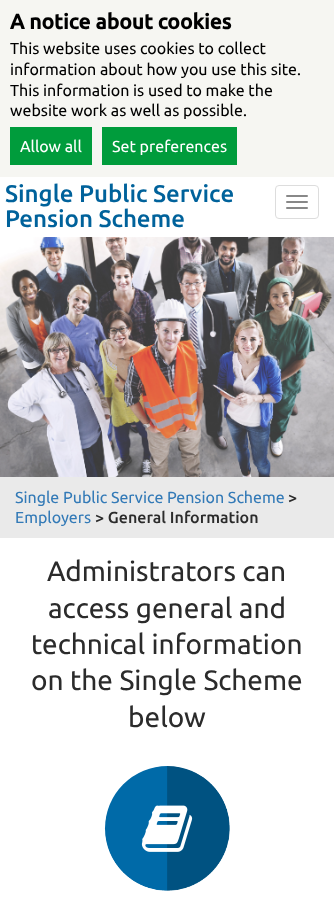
<svg xmlns="http://www.w3.org/2000/svg" width="334" height="897" viewBox="0 0 334 897">
  <rect width="100%" height="100%" fill="rgb(255,255,255)"/>
  <rect x="0" y="0" width="334" height="177" fill="rgb(246,246,242)"/>
  <text x="10" y="29" font-family="Ubuntu" font-size="21" font-weight="bold" fill="rgb(0,0,0)">A notice about cookies</text>
  <g font-family="Ubuntu" font-size="16" fill="rgb(0,0,0)">
    <text>
      <tspan x="10" y="54">This website uses cookies to collect</tspan>
      <tspan x="10" y="75">information about how you use this site.</tspan>
      <tspan x="10" y="96">This information is used to make the</tspan>
      <tspan x="10" y="116">website work as well as possible.</tspan>
    </text>
  </g>
  <rect x="10" y="127" width="82" height="38" fill="rgb(0,156,60)"/>
  <text x="20" y="152" font-family="Ubuntu" font-size="16" fill="rgb(255,255,255)">Allow all</text>
  <rect x="102" y="127" width="135" height="38" fill="rgb(0,156,60)"/>
  <text x="112" y="152" font-family="Ubuntu" font-size="16" fill="rgb(255,255,255)">Set preferences</text>
  <g font-family="Ubuntu" font-size="24" font-weight="500" fill="rgb(0,98,155)">
    <text>
      <tspan x="5" y="202">Single Public Service</tspan>
      <tspan x="5" y="227">Pension Scheme</tspan>
    </text>
  </g>
  <rect x="275.5" y="185.5" width="43" height="33" rx="3.5" fill="none" stroke="rgb(221,221,221)"/>
  <rect x="286" y="195" width="22" height="2" rx="1" fill="rgb(136,136,136)"/>
  <rect x="286" y="201" width="22" height="2" rx="1" fill="rgb(136,136,136)"/>
  <rect x="286" y="207" width="22" height="2" rx="1" fill="rgb(136,136,136)"/>
  <image x="0" y="237" width="334" height="240" href="pic1.png"/>
  <rect x="0" y="477" width="334" height="61" fill="rgb(234,234,234)"/>
  <text x="15" y="503" font-family="Ubuntu" font-size="16" fill="rgb(51,122,183)">Single Public Service Pension Scheme</text>
  <text x="288" y="503" font-family="Ubuntu" font-size="16" font-weight="500" fill="rgb(43,43,43)">&gt;</text>
  <text x="15" y="523" font-family="Ubuntu" font-size="16" fill="rgb(51,122,183)">Employers</text>
  <text x="95" y="523" font-family="Ubuntu" font-size="16" font-weight="500" fill="rgb(43,43,43)">&gt; General Information</text>
  <g font-family="Ubuntu" font-size="28" fill="rgb(43,43,43)">
    <text x="47" y="581">Administrators can</text>
    <text x="48" y="618">access general and</text>
    <text>
      <tspan x="31" y="654">technical information</tspan>
      <tspan x="31" y="690">on the Single Scheme</tspan>
    </text>
    <text x="128" y="727">below</text>
  </g>
  <image x="104" y="766" width="126" height="125" href="pic2.png"/>
  <image x="141" y="805" width="52" height="47" href="pic3.png"/>
</svg>
